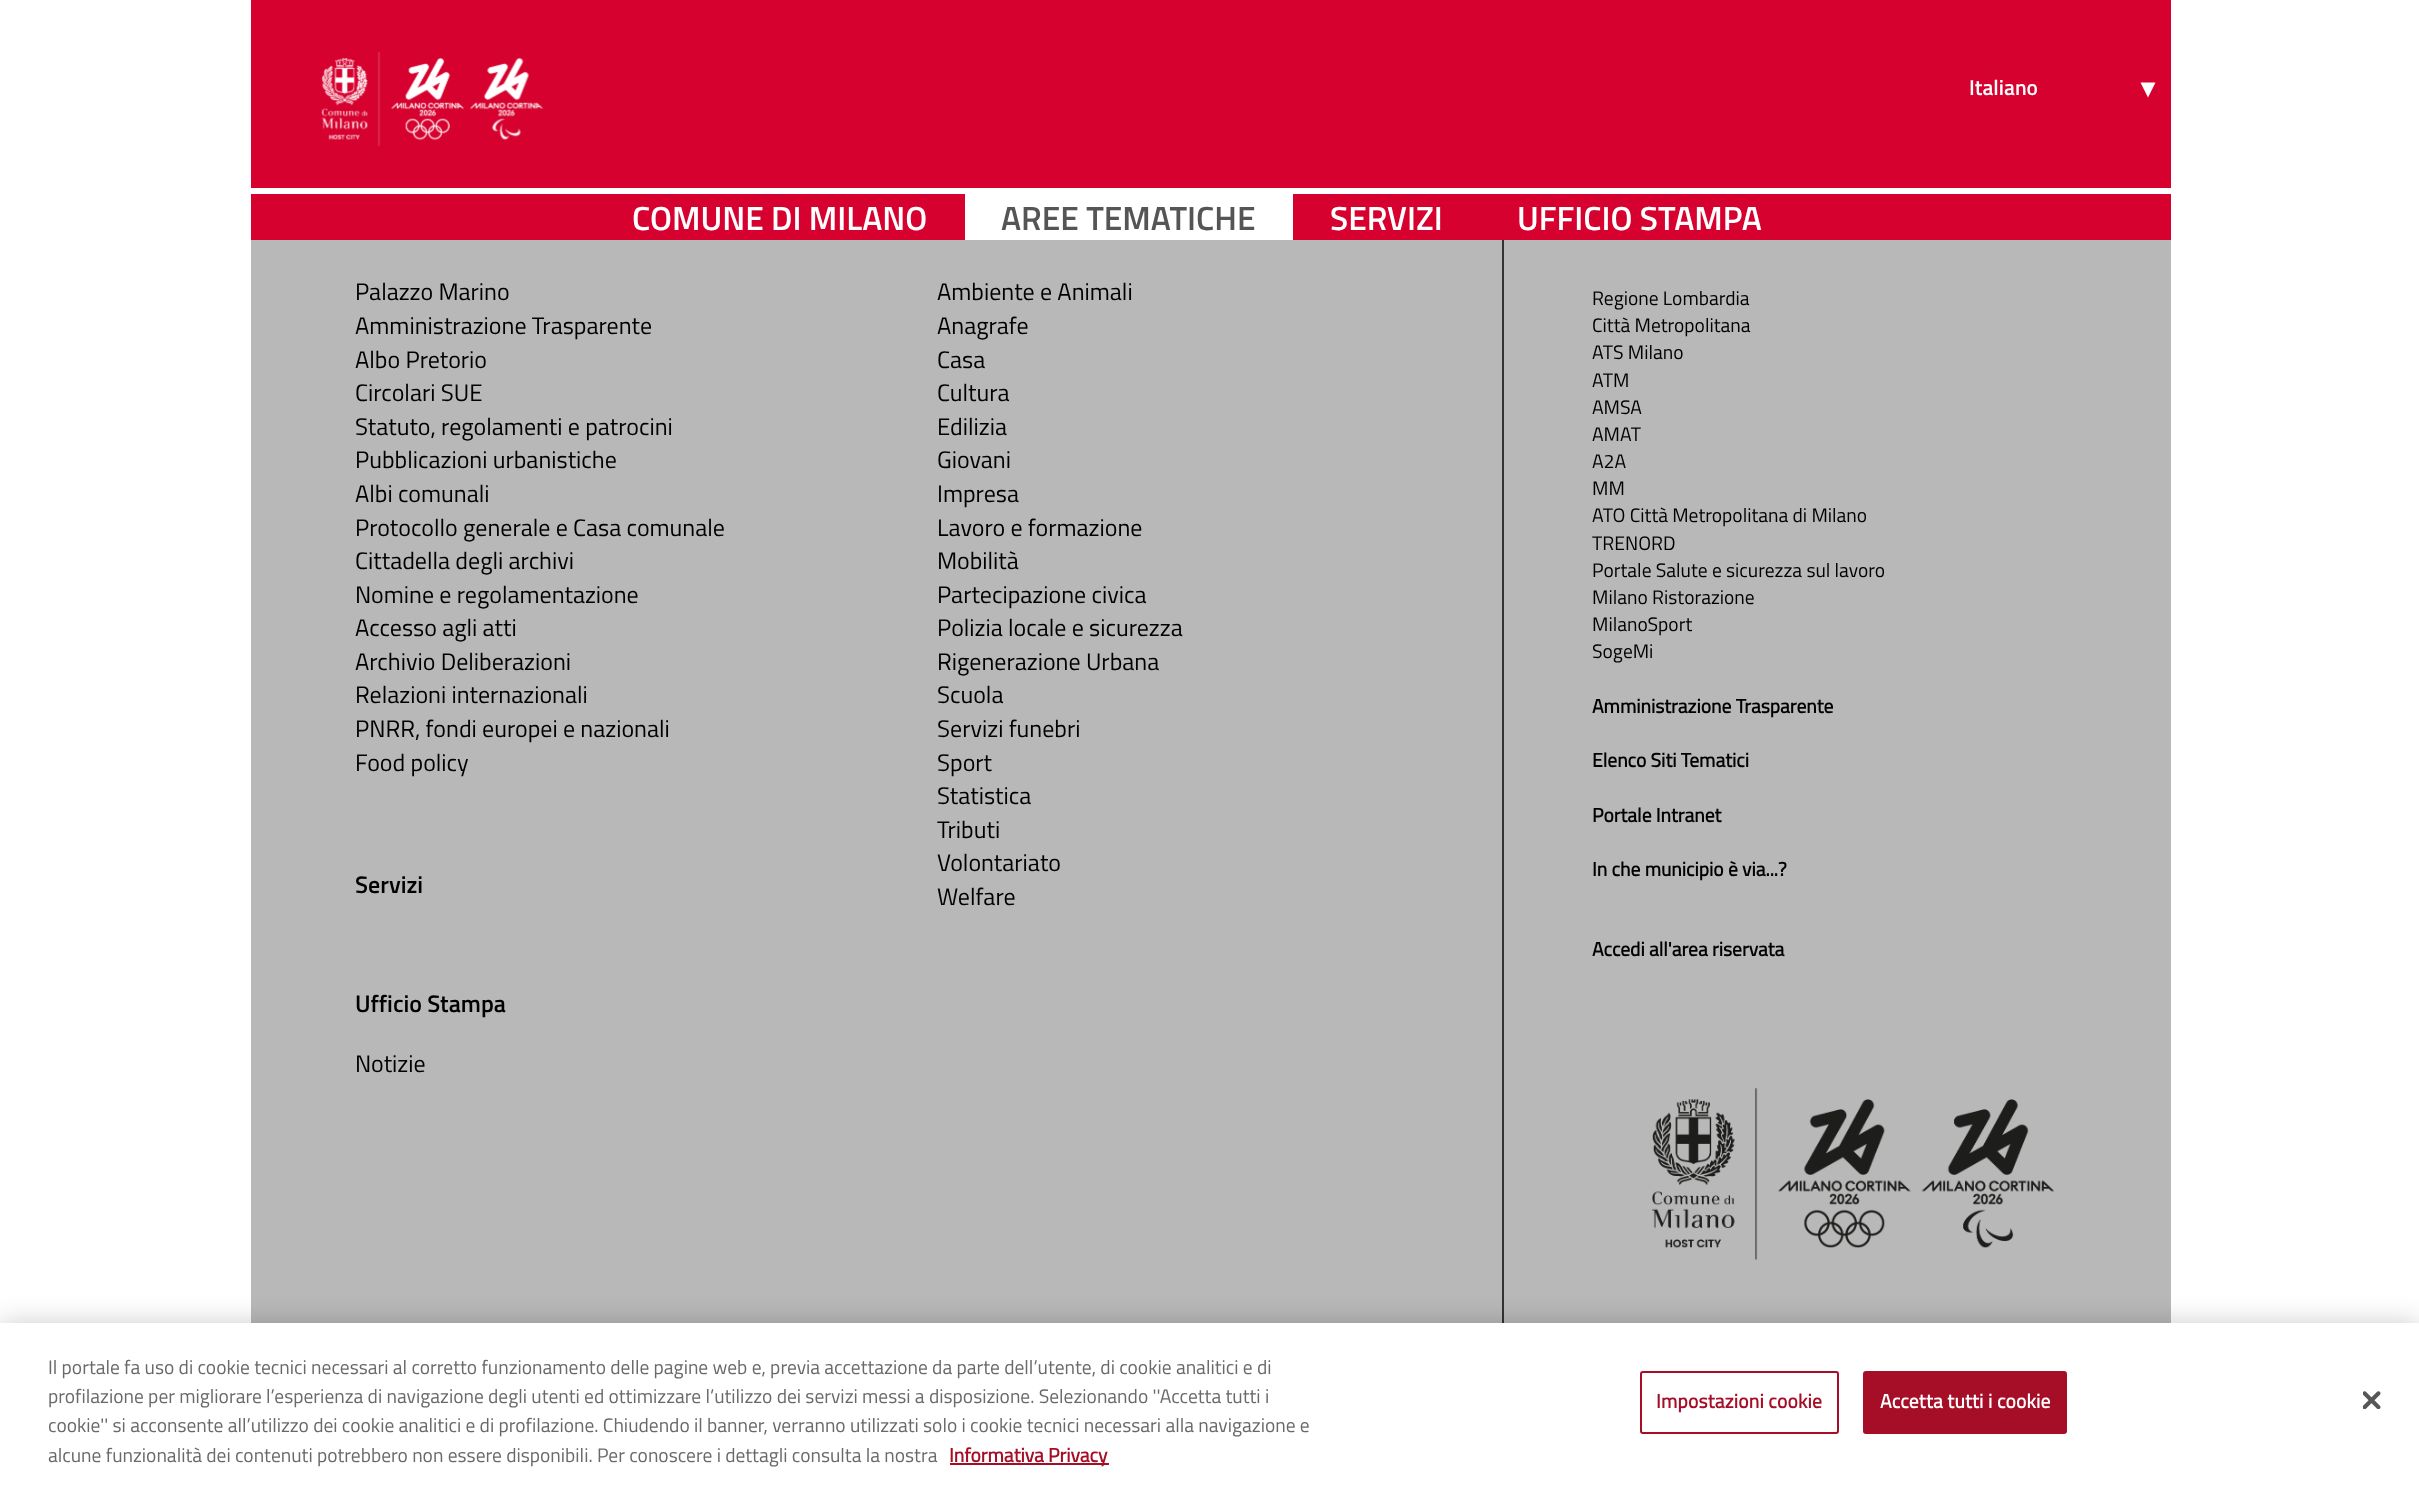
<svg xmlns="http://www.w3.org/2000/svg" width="2419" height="1485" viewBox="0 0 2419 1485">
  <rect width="100%" height="100%" fill="rgb(255,255,255)"/>
  <rect x="251" y="0" width="1920" height="188" fill="rgb(214,1,46)"/>
  <image x="321" y="52" width="223" height="95" href="pic1.png"/>
  <text x="1969" y="95" font-family="Titillium Web" font-size="21.5" font-weight="600" fill="rgb(255,255,255)">Italiano</text>
  <path d="M2140.5 82.5H2155.5L2148 97.5Z" fill="rgb(255,255,255)"/>
  <rect x="251" y="194" width="1920" height="46" fill="rgb(214,1,46)"/>
  <text x="632" y="230" font-family="Titillium Web" font-size="33.5" font-weight="600" fill="rgb(255,255,255)">COMUNE DI MILANO</text>
  <rect x="965" y="194" width="328" height="46" fill="rgb(255,255,255)"/>
  <text x="1001" y="230" font-family="Titillium Web" font-size="33.5" font-weight="600" fill="rgb(85,85,85)">AREE TEMATICHE</text>
  <g font-family="Titillium Web" font-size="33.5" font-weight="600" fill="rgb(255,255,255)">
    <text x="1330" y="230">SERVIZI</text>
    <text x="1517" y="230">UFFICIO STAMPA</text>
  </g>
  <rect x="251" y="240" width="1920" height="1083" fill="rgb(184,184,184)"/>
  <g font-family="Titillium Web" font-size="24" fill="rgb(0,0,0)">
    <text>
      <tspan x="355" y="300">Palazzo Marino</tspan>
      <tspan x="355" y="334">Amministrazione Trasparente</tspan>
      <tspan x="355" y="368">Albo Pretorio</tspan>
      <tspan x="355" y="401">Circolari SUE</tspan>
      <tspan x="355" y="435">Statuto, regolamenti e patrocini</tspan>
      <tspan x="355" y="468">Pubblicazioni urbanistiche</tspan>
      <tspan x="355" y="502">Albi comunali</tspan>
      <tspan x="355" y="536">Protocollo generale e Casa comunale</tspan>
      <tspan x="355" y="569">Cittadella degli archivi</tspan>
      <tspan x="355" y="603">Nomine e regolamentazione</tspan>
      <tspan x="355" y="636">Accesso agli atti</tspan>
      <tspan x="355" y="670">Archivio Deliberazioni</tspan>
      <tspan x="355" y="703">Relazioni internazionali</tspan>
      <tspan x="355" y="737">PNRR, fondi europei e nazionali</tspan>
      <tspan x="355" y="771">Food policy</tspan>
    </text>
  </g>
  <g font-family="Titillium Web" font-size="24" font-weight="600" fill="rgb(0,0,0)">
    <text x="355" y="893">Servizi</text>
    <text x="355" y="1012">Ufficio Stampa</text>
  </g>
  <g font-family="Titillium Web" font-size="24" fill="rgb(0,0,0)">
    <text x="355" y="1072">Notizie</text>
    <text>
      <tspan x="937" y="300">Ambiente e Animali</tspan>
      <tspan x="937" y="334">Anagrafe</tspan>
      <tspan x="937" y="368">Casa</tspan>
      <tspan x="937" y="401">Cultura</tspan>
      <tspan x="937" y="435">Edilizia</tspan>
      <tspan x="937" y="468">Giovani</tspan>
      <tspan x="937" y="502">Impresa</tspan>
      <tspan x="937" y="536">Lavoro e formazione</tspan>
      <tspan x="937" y="569">Mobilità</tspan>
      <tspan x="937" y="603">Partecipazione civica</tspan>
      <tspan x="937" y="636">Polizia locale e sicurezza</tspan>
      <tspan x="937" y="670">Rigenerazione Urbana</tspan>
      <tspan x="937" y="703">Scuola</tspan>
      <tspan x="937" y="737">Servizi funebri</tspan>
      <tspan x="937" y="771">Sport</tspan>
      <tspan x="937" y="804">Statistica</tspan>
      <tspan x="937" y="838">Tributi</tspan>
      <tspan x="937" y="871">Volontariato</tspan>
      <tspan x="937" y="905">Welfare</tspan>
    </text>
  </g>
  <rect x="1502" y="240" width="2" height="1083" fill="rgb(51,51,51)"/>
  <g font-family="Titillium Web" font-size="19.5" fill="rgb(0,0,0)">
    <text>
      <tspan x="1592" y="305">Regione Lombardia</tspan>
      <tspan x="1592" y="332">Città Metropolitana</tspan>
      <tspan x="1592" y="359">ATS Milano</tspan>
      <tspan x="1592" y="387">ATM</tspan>
      <tspan x="1592" y="414">AMSA</tspan>
      <tspan x="1592" y="441">AMAT</tspan>
      <tspan x="1592" y="468">A2A</tspan>
      <tspan x="1592" y="495">MM</tspan>
      <tspan x="1592" y="522">ATO Città Metropolitana di Milano</tspan>
      <tspan x="1592" y="550">TRENORD</tspan>
      <tspan x="1592" y="577">Portale Salute e sicurezza sul lavoro</tspan>
      <tspan x="1592" y="604">Milano Ristorazione</tspan>
      <tspan x="1592" y="631">MilanoSport</tspan>
      <tspan x="1592" y="658">SogeMi</tspan>
    </text>
  </g>
  <g font-family="Titillium Web" font-size="19.5" font-weight="bold" fill="rgb(0,0,0)">
    <text x="1592" y="713">Amministrazione Trasparente</text>
    <text x="1592" y="767">Elenco Siti Tematici</text>
    <text x="1592" y="822">Portale Intranet</text>
    <text x="1592" y="876">In che municipio è via...?</text>
    <text x="1592" y="956">Accedi all'area riservata</text>
  </g>
  <image x="1652" y="1088" width="402" height="172" href="pic2.png"/>
  <rect x="0" y="1323" width="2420" height="162" fill="rgba(0,0,0,0.2)" filter="blur(13.5px)"/>
  <rect x="0" y="1323" width="2419" height="162" fill="rgb(255,255,255)"/>
  <g font-family="Titillium Web" font-size="19.5" fill="rgb(105,105,105)">
    <text>
      <tspan x="48" y="1374">Il portale fa uso di cookie tecnici necessari al corretto funzionamento delle pagine web e, previa accettazione da parte dell’utente, di cookie analitici e di</tspan>
      <tspan x="48" y="1403">profilazione per migliorare l’esperienza di navigazione degli utenti ed ottimizzare l’utilizzo dei servizi messi a disposizione. Selezionando ''Accetta tutti i</tspan>
      <tspan x="48" y="1432">cookie'' si acconsente all’utilizzo dei cookie analitici e di profilazione. Chiudendo il banner, verranno utilizzati solo i cookie tecnici necessari alla navigazione e</tspan>
      <tspan x="48" y="1462">alcune funzionalità dei contenuti potrebbero non essere disponibili. Per conoscere i dettagli consulta la nostra</tspan>
    </text>
  </g>
  <rect x="950" y="1463" width="159" height="2" fill="rgb(166,13,39)"/>
  <text x="949" y="1462" font-family="Titillium Web" font-size="19.5" font-weight="bold" fill="rgb(166,13,39)">Informativa Privacy</text>
  <rect x="1641" y="1372" width="197" height="61" rx="2" fill="none" stroke="rgb(166,13,39)" stroke-width="2"/>
  <text x="1656" y="1408" font-family="Titillium Web" font-size="19.5" font-weight="bold" letter-spacing="0.2" fill="rgb(166,13,39)">Impostazioni cookie</text>
  <rect x="1864" y="1372" width="202" height="61" rx="2" fill="rgb(166,13,39)" stroke="rgb(166,13,39)" stroke-width="2"/>
  <text x="1880" y="1408" font-family="Titillium Web" font-size="19.5" font-weight="bold" letter-spacing="0.2" fill="rgb(255,255,255)">Accetta tutti i cookie</text>
  <image x="2363" y="1391" width="18" height="18" href="pic3.png"/>
</svg>
